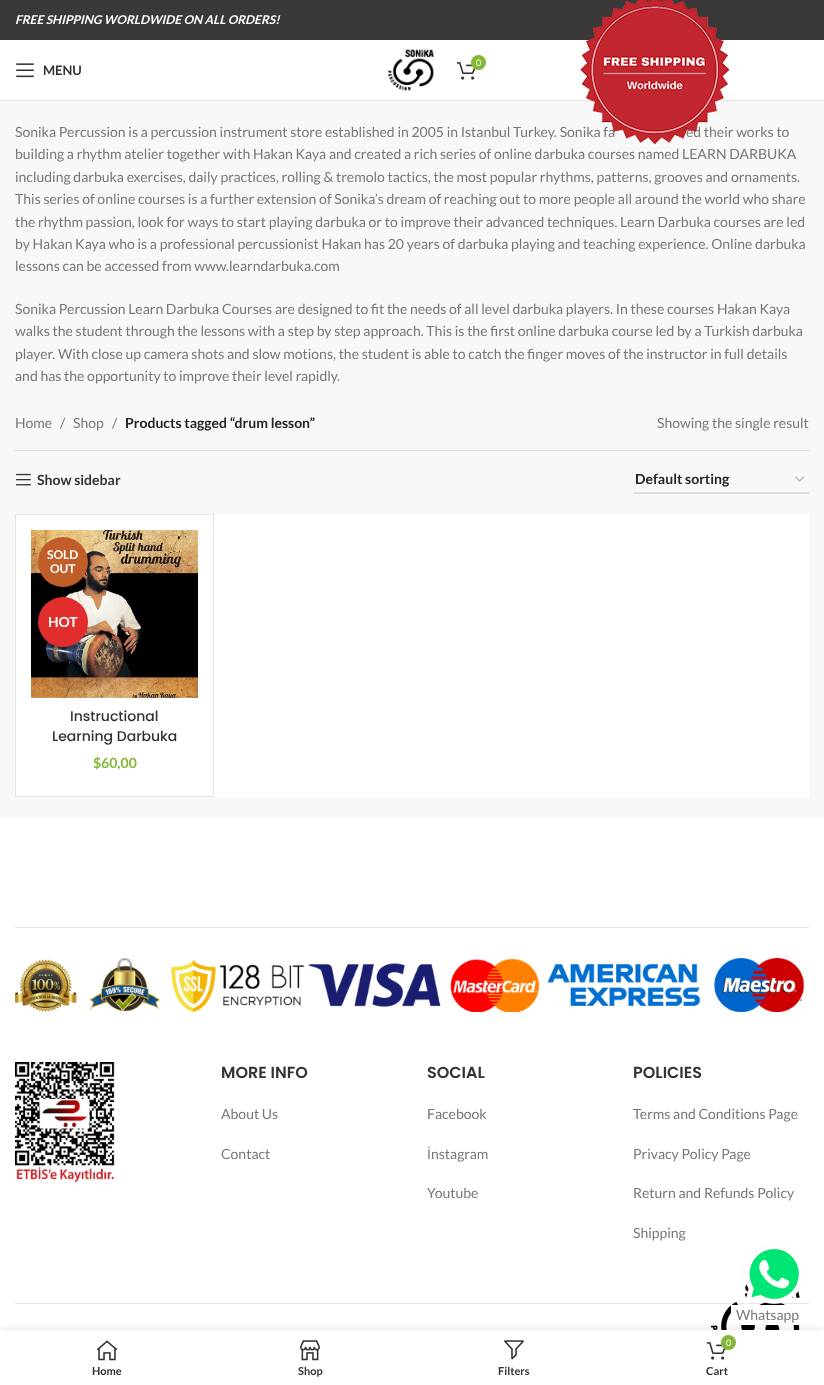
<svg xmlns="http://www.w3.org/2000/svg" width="824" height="1385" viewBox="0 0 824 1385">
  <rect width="100%" height="100%" fill="rgb(255,255,255)"/>
  <rect x="0" y="0" width="824" height="40" fill="rgb(58,57,56)"/>
  <text x="15" y="24" font-family="Lato" font-size="12" font-weight="bold" font-style="italic" fill="rgb(255,255,255)">FREE SHIPPING WORLDWIDE ON ALL ORDERS!</text>
  <rect x="0" y="100" width="824" height="1" fill="rgb(230,230,230)"/>
  <image x="388" y="49" width="46" height="42" href="pic1.png"/>
  <image x="457" y="62" width="19" height="18" href="pic2.png"/>
  <circle cx="478.5" cy="62.5" r="7.5" fill="rgb(131,183,53)"/>
  <text x="476" y="66" font-family="Lato" font-size="9" fill="rgb(255,255,255)">0</text>
  <rect x="0" y="101" width="824" height="716" fill="rgb(248,248,248)"/>
  <g font-family="Lato" font-size="14" fill="rgb(119,119,119)">
    <text x="15" y="137">Sonika Percussion is a percussion instrument store established in 2005 in Istanbul Turkey. Sonika fa</text>
    <text x="686" y="137">ed their works to</text>
  </g>
  <image x="580" y="0" width="150" height="145" href="pic3.png"/>
  <image x="16" y="63" width="18" height="15" href="pic4.png"/>
  <text x="43" y="75" font-family="Lato" font-size="13" font-weight="bold" fill="rgb(51,51,51)">MENU</text>
  <g font-family="Lato" font-size="14" fill="rgb(119,119,119)">
    <text>
      <tspan x="15" y="159">building a rhythm atelier together with Hakan Kaya and created a rich series of online darbuka courses named LEARN DARBUKA</tspan>
      <tspan x="15" y="182">including darbuka exercises, daily practices, rolling &amp; tremolo tactics, the most popular rhythms, patterns, grooves and ornaments.</tspan>
      <tspan x="15" y="204">This series of online courses is a further extension of Sonika’s dream of reaching out to more people all around the world who share</tspan>
      <tspan x="15" y="227">the rhythm passion, look for ways to start playing darbuka or to improve their advanced techniques. Learn Darbuka courses are led</tspan>
      <tspan x="15" y="249">by Hakan Kaya who is a professional percussionist Hakan has 20 years of darbuka playing and teaching experience. Online darbuka</tspan>
      <tspan x="15" y="271">lessons can be accessed from www.learndarbuka.com</tspan>
    </text>
    <text>
      <tspan x="15" y="314">Sonika Percussion Learn Darbuka Courses are designed to fit the needs of all level darbuka players. In these courses Hakan Kaya</tspan>
      <tspan x="15" y="336">walks the student through the lessons with a step by step approach. This is the first online darbuka course led by a Turkish darbuka</tspan>
      <tspan x="15" y="359">player. With close up camera shots and slow motions, the student is able to catch the finger moves of the instructor in full details</tspan>
      <tspan x="15" y="381">and has the opportunity to improve their level rapidly.</tspan>
    </text>
  </g>
  <rect x="15" y="450" width="794" height="1" fill="rgb(222,222,222)"/>
  <g font-family="Lato" font-size="14" fill="rgb(119,119,119)">
    <text x="15" y="428">Home</text>
    <text x="60" y="428">/</text>
    <text x="73" y="428">Shop</text>
    <text x="112" y="428">/</text>
  </g>
  <text x="125" y="428" font-family="Lato" font-size="14" font-weight="bold" fill="rgb(36,36,36)">Products tagged “drum lesson”</text>
  <text x="657" y="428" font-family="Lato" font-size="14" fill="rgb(119,119,119)">Showing the single result</text>
  <image x="16" y="473" width="15" height="13" href="pic5.png"/>
  <text x="37" y="485" font-family="Lato" font-size="14" font-weight="bold" fill="rgb(51,51,51)">Show sidebar</text>
  <path d="M795.5 476.5L799.5 481L804 476.5" fill="none" stroke="rgb(187,187,187)" stroke-width="1.4"/>
  <rect x="633" y="492" width="176" height="2" fill="rgb(223,223,223)"/>
  <text x="635" y="484" font-family="Lato" font-size="14" font-weight="bold" fill="rgb(36,36,36)">Default sorting</text>
  <rect x="16" y="514" width="793" height="283" fill="rgb(255,255,255)"/>
  <rect x="15" y="514" width="1" height="283" fill="rgb(228,228,228)"/>
  <path d="M16 514H214L213 515H16Z" fill="rgb(228,228,228)"/>
  <path d="M214 514V797L213 796V515Z" fill="rgba(0,0,0,0.11)"/>
  <path d="M214 797H16V796H213Z" fill="rgba(0,0,0,0.11)"/>
  <image x="31" y="530" width="167" height="168" href="pic6.png"/>
  <circle cx="63" cy="562" r="25" fill="rgb(192,93,41)"/>
  <g font-family="Lato" font-size="12" font-weight="bold" fill="rgb(255,255,255)">
    <text x="47" y="559">SOLD</text>
    <text x="50" y="573">OUT</text>
  </g>
  <circle cx="63" cy="622" r="25" fill="rgb(226,45,45)"/>
  <text x="48" y="627" font-family="Lato" font-size="14" font-weight="bold" fill="rgb(255,255,255)">HOT</text>
  <g font-family="Poppins" font-size="14" font-weight="500" fill="rgb(51,51,51)">
    <text x="70" y="721">Instructional</text>
    <text x="52" y="741">Learning Darbuka</text>
  </g>
  <text x="93" y="768" font-family="Lato" font-size="14" font-weight="bold" fill="rgb(131,183,53)">$60,00</text>
  <image x="15" y="1062" width="100" height="120" href="pic7.png"/>
  <text x="221" y="1078" font-family="Poppins" font-size="16" font-weight="600" fill="rgb(51,51,51)">MORE INFO</text>
  <g font-family="Lato" font-size="14" fill="rgb(119,119,119)">
    <text x="221" y="1119">About Us</text>
    <text x="221" y="1159">Contact</text>
  </g>
  <text x="427" y="1078" font-family="Poppins" font-size="16" font-weight="600" fill="rgb(51,51,51)">SOCIAL</text>
  <text x="427" y="1119" font-family="Lato" font-size="14" fill="rgb(119,119,119)">Facebook</text>
  <text x="427" y="1159" font-family="Liberation Sans" font-size="14" fill="rgb(119,119,119)">İ</text>
  <g font-family="Lato" font-size="14" fill="rgb(119,119,119)">
    <text x="431" y="1159">nstagram</text>
    <text x="427" y="1198">Youtube</text>
  </g>
  <text x="633" y="1078" font-family="Poppins" font-size="16" font-weight="600" fill="rgb(51,51,51)">POLICIES</text>
  <g font-family="Lato" font-size="14" fill="rgb(119,119,119)">
    <text x="633" y="1119">Terms and Conditions Page</text>
    <text x="633" y="1159">Privacy Policy Page</text>
    <text x="633" y="1198">Return and Refunds Policy</text>
    <text x="633" y="1238">Shipping</text>
  </g>
  <rect x="15" y="1303" width="794" height="1" fill="rgb(228,228,228)"/>
  <image x="711" y="1284" width="89" height="46" href="pic8.png"/>
  <image x="15" y="958" width="790" height="54" href="pic9.png"/>
  <rect x="15" y="927" width="794" height="1" fill="rgb(228,228,228)"/>
  <image x="744" y="1244" width="59" height="61" href="pic10.png"/>
  <rect x="731" y="1305" width="68" height="20" fill="rgb(255,255,255)"/>
  <text x="736" y="1320" font-family="Lato" font-size="14" fill="rgb(119,119,119)">Whatsapp</text>
  <rect x="0" y="1330" width="824" height="55" fill="rgba(0,0,0,0.12)" filter="blur(4.5px)"/>
  <rect x="0" y="1330" width="824" height="55" fill="rgb(255,255,255)"/>
  <image x="97" y="1340" width="20" height="21" href="pic11.png"/>
  <text x="92" y="1375" font-family="Lato" font-size="11" font-weight="bold" fill="rgb(51,51,51)">Home</text>
  <image x="300" y="1340" width="20" height="21" href="pic12.png"/>
  <text x="298" y="1375" font-family="Lato" font-size="11" font-weight="bold" fill="rgb(51,51,51)">Shop</text>
  <image x="504" y="1340" width="20" height="20" href="pic13.png"/>
  <text x="498" y="1375" font-family="Lato" font-size="11" font-weight="bold" fill="rgb(51,51,51)">Filters</text>
  <image x="707" y="1342" width="19" height="18" href="pic2.png"/>
  <circle cx="728.5" cy="1342.5" r="7.5" fill="rgb(131,183,53)"/>
  <text x="726" y="1346" font-family="Lato" font-size="9" fill="rgb(255,255,255)">0</text>
  <text x="706" y="1375" font-family="Lato" font-size="11" font-weight="bold" fill="rgb(51,51,51)">Cart</text>
</svg>
